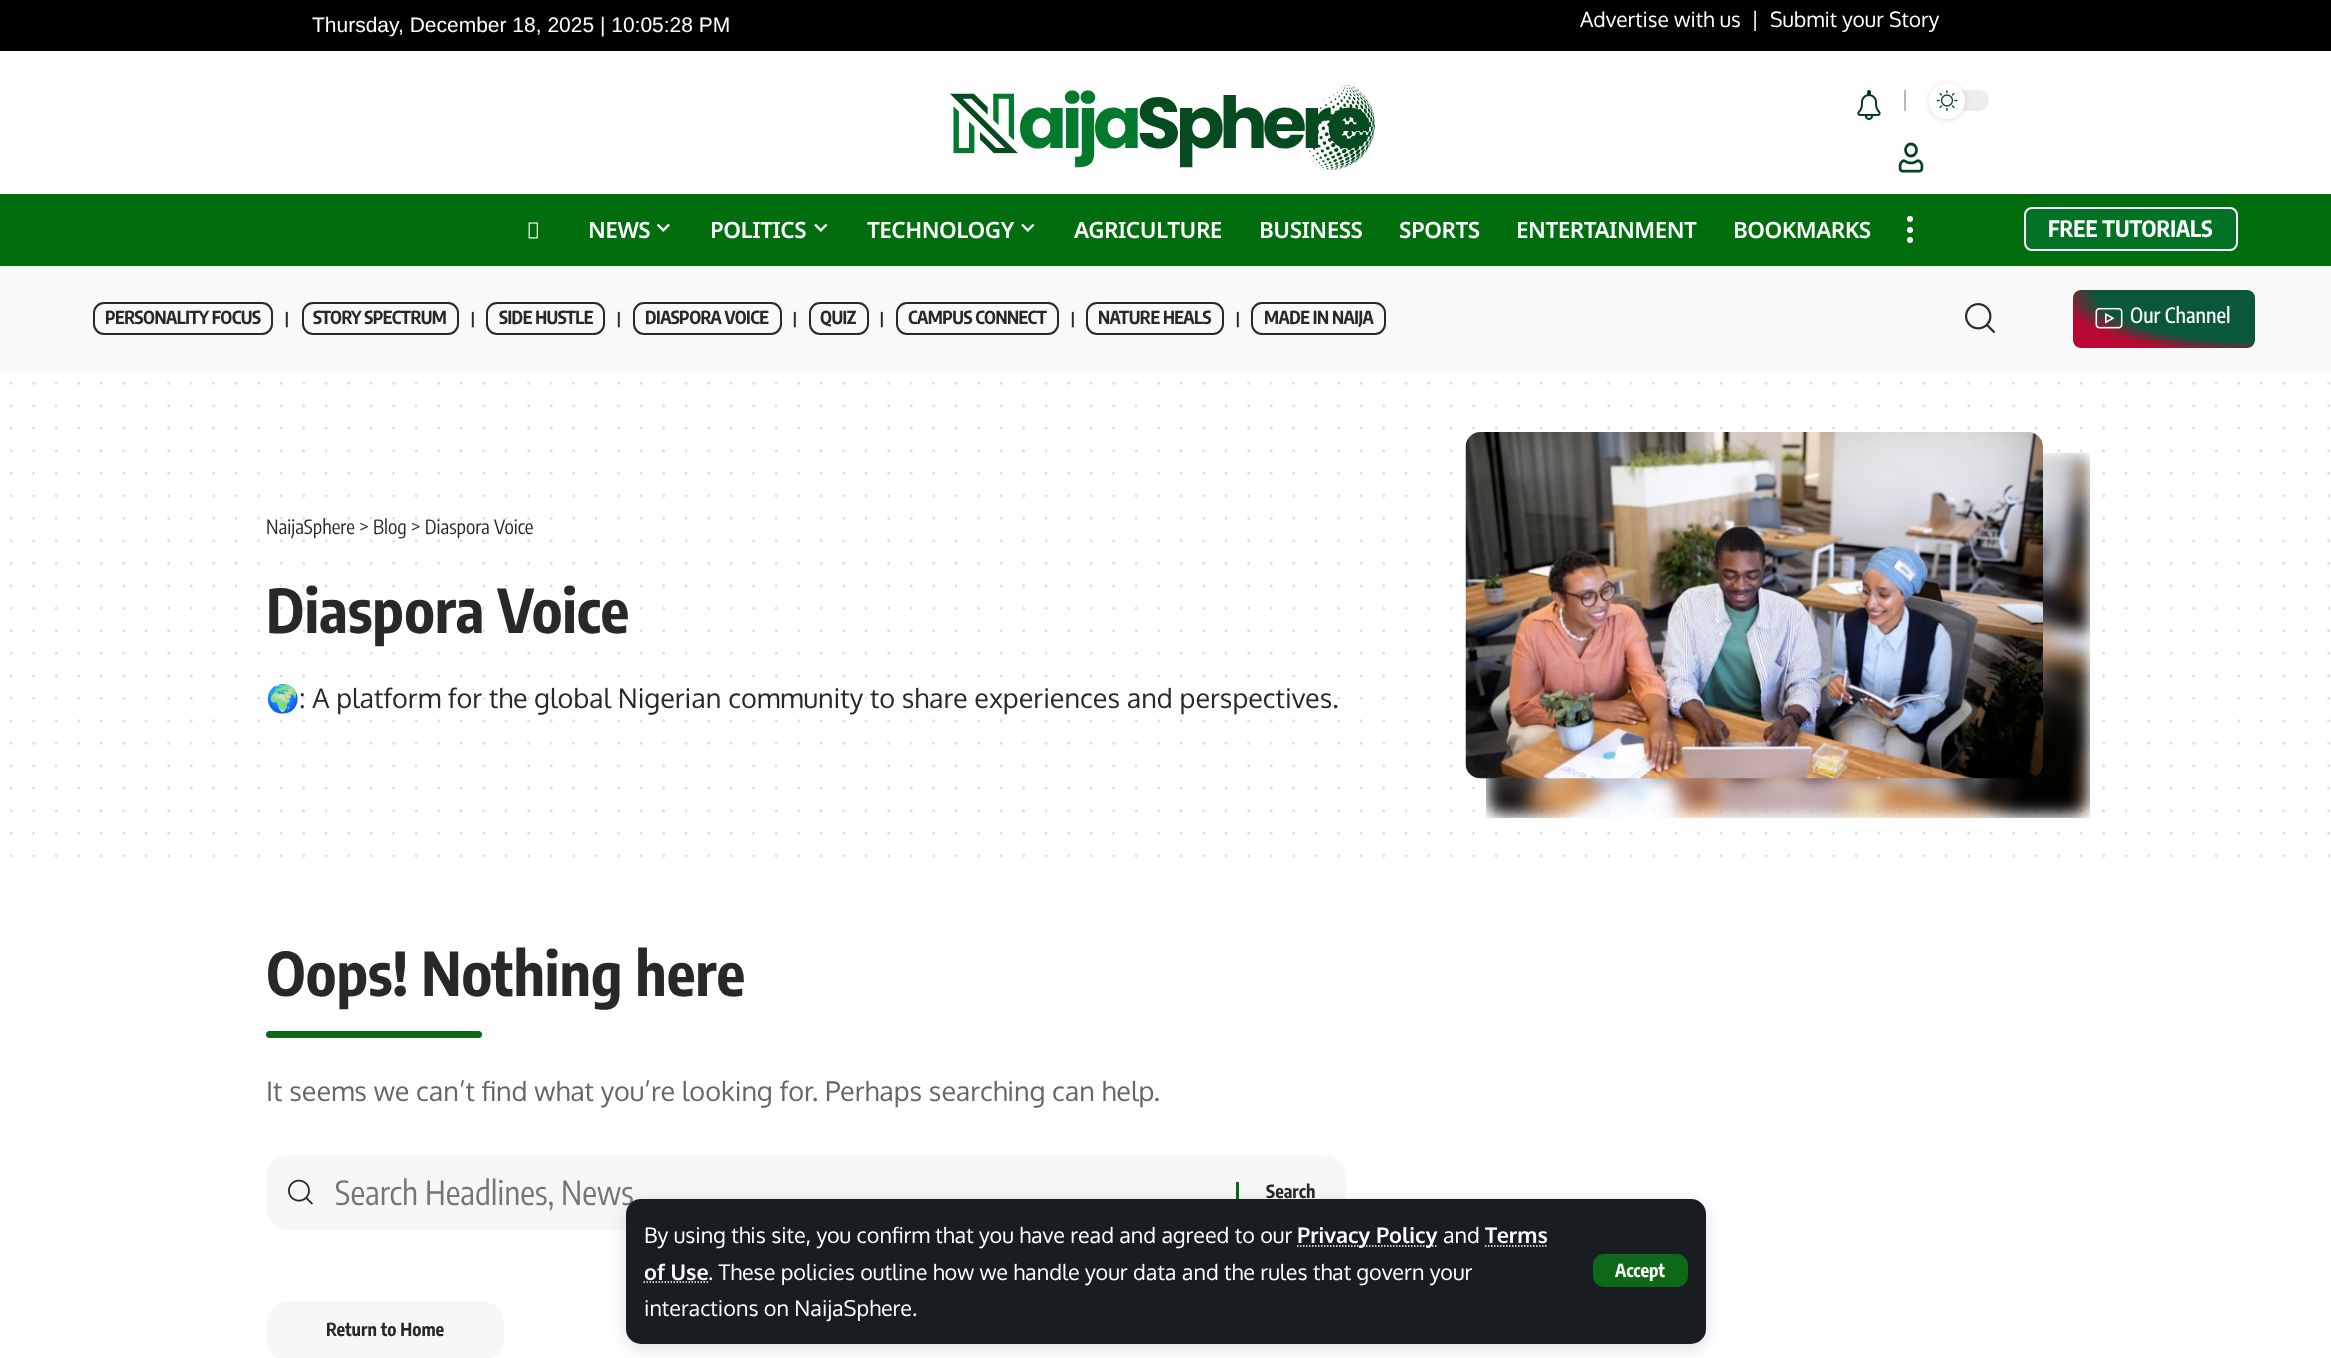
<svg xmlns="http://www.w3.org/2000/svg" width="2331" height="1358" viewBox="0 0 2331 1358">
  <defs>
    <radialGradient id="g1" gradientUnits="userSpaceOnUse" cx="0" cy="0" r="1" gradientTransform="matrix(257 0 0 83 2255 290)"><stop offset="0.62" stop-color="rgb(9,88,56)"/><stop offset="0.78" stop-color="rgb(185,8,52)"/></radialGradient>
  </defs>
  <rect width="100%" height="100%" fill="rgb(255,255,255)"/>
  <rect x="0" y="0" width="2331" height="51" fill="rgb(0,0,0)"/>
  <text x="312" y="32" font-family="Liberation Sans" font-size="21" fill="rgb(255,255,255)">Thursday, December 18, 2025 | 10:05:28 PM</text>
  <g font-family="Oxygen" font-size="21" fill="rgb(255,255,255)">
    <text x="1580" y="27">Advertise with us</text>
    <text x="1751" y="27">|</text>
    <text x="1770" y="27">Submit your Story</text>
  </g>
  <image x="950" y="84" width="425" height="86" href="pic1.png"/>
  <image x="1857" y="90" width="24" height="30" href="pic2.png"/>
  <rect x="1904" y="90" width="2" height="21" fill="rgb(184,184,184)"/>
  <rect x="1929" y="90" width="60" height="21" rx="10.5" fill="rgb(237,237,237)"/>
  <rect x="1929" y="84" width="36" height="36" rx="18" fill="rgba(0,0,0,0.12)" filter="blur(3px)"/>
  <circle cx="1947" cy="101" r="18" fill="rgb(255,255,255)"/>
  <image x="1937" y="90" width="21" height="21" href="pic3.png"/>
  <image x="1898" y="142" width="26" height="31" href="pic4.png"/>
  <rect x="0" y="194" width="2331" height="72" fill="rgb(0,110,14)"/>
  <image x="528" y="222" width="10" height="17" href="pic5.png"/>
  <text x="588" y="238" font-family="Noto Sans" font-size="22.5" font-weight="600" letter-spacing="-0.5" fill="rgb(255,255,255)">NEWS</text>
  <image x="656" y="223" width="14" height="9" href="pic6.png"/>
  <text x="710" y="238" font-family="Noto Sans" font-size="22.5" font-weight="600" letter-spacing="-0.5" fill="rgb(255,255,255)">POLITICS</text>
  <image x="814" y="223" width="14" height="9" href="pic7.png"/>
  <text x="867" y="238" font-family="Noto Sans" font-size="22.5" font-weight="600" letter-spacing="-0.5" fill="rgb(255,255,255)">TECHNOLOGY</text>
  <image x="1021" y="223" width="14" height="9" href="pic7.png"/>
  <g font-family="Noto Sans" font-size="22.5" font-weight="600" letter-spacing="-0.5" fill="rgb(255,255,255)">
    <text x="1074" y="238">AGRICULTURE</text>
    <text x="1259" y="238">BUSINESS</text>
    <text x="1399" y="238">SPORTS</text>
    <text x="1516" y="238">ENTERTAINMENT</text>
    <text x="1733" y="238">BOOKMARKS</text>
  </g>
  <circle cx="1910" cy="219" r="3" fill="rgb(255,255,255)"/>
  <circle cx="1910" cy="230" r="3" fill="rgb(255,255,255)"/>
  <circle cx="1910" cy="240" r="3" fill="rgb(255,255,255)"/>
  <rect x="2025" y="208" width="212" height="42" rx="7" fill="rgb(1,113,38)" stroke="rgb(255,255,255)" stroke-width="2"/>
  <text x="2048" y="237" font-family="Encode Sans Condensed" font-size="22.5" font-weight="bold" fill="rgb(255,255,255)">FREE TUTORIALS</text>
  <rect x="0" y="266" width="2331" height="106" fill="rgb(249,249,249)"/>
  <rect x="94" y="303" width="178" height="31" rx="10" fill="none" stroke="rgb(40,40,40)" stroke-width="2"/>
  <text x="105" y="324" font-family="Encode Sans Condensed" font-size="18" font-weight="bold" letter-spacing="-0.5" fill="rgb(40,40,40)">PERSONALITY FOCUS</text>
  <text x="285" y="324" font-family="Encode Sans Condensed" font-size="15" font-weight="bold" fill="rgb(40,40,40)">|</text>
  <rect x="303" y="303" width="155" height="31" rx="10" fill="none" stroke="rgb(40,40,40)" stroke-width="2"/>
  <text x="313" y="324" font-family="Encode Sans Condensed" font-size="18" font-weight="bold" letter-spacing="-0.5" fill="rgb(40,40,40)">STORY SPECTRUM</text>
  <text x="471" y="324" font-family="Encode Sans Condensed" font-size="15" font-weight="bold" fill="rgb(40,40,40)">|</text>
  <rect x="487" y="303" width="117" height="31" rx="10" fill="none" stroke="rgb(40,40,40)" stroke-width="2"/>
  <text x="499" y="324" font-family="Encode Sans Condensed" font-size="18" font-weight="bold" letter-spacing="-0.5" fill="rgb(40,40,40)">SIDE HUSTLE</text>
  <text x="617" y="324" font-family="Encode Sans Condensed" font-size="15" font-weight="bold" fill="rgb(40,40,40)">|</text>
  <rect x="634" y="303" width="147" height="31" rx="10" fill="none" stroke="rgb(40,40,40)" stroke-width="2"/>
  <text x="645" y="324" font-family="Encode Sans Condensed" font-size="18" font-weight="bold" letter-spacing="-0.5" fill="rgb(40,40,40)">DIASPORA VOICE</text>
  <text x="793" y="324" font-family="Encode Sans Condensed" font-size="15" font-weight="bold" fill="rgb(40,40,40)">|</text>
  <rect x="810" y="303" width="58" height="31" rx="10" fill="none" stroke="rgb(40,40,40)" stroke-width="2"/>
  <text x="820" y="324" font-family="Encode Sans Condensed" font-size="18" font-weight="bold" letter-spacing="-0.5" fill="rgb(40,40,40)">QUIZ</text>
  <text x="880" y="324" font-family="Encode Sans Condensed" font-size="15" font-weight="bold" fill="rgb(40,40,40)">|</text>
  <rect x="897" y="303" width="161" height="31" rx="10" fill="none" stroke="rgb(40,40,40)" stroke-width="2"/>
  <text x="908" y="324" font-family="Encode Sans Condensed" font-size="18" font-weight="bold" letter-spacing="-0.5" fill="rgb(40,40,40)">CAMPUS CONNECT</text>
  <text x="1071" y="324" font-family="Encode Sans Condensed" font-size="15" font-weight="bold" fill="rgb(40,40,40)">|</text>
  <rect x="1087" y="303" width="136" height="31" rx="10" fill="none" stroke="rgb(40,40,40)" stroke-width="2"/>
  <text x="1098" y="324" font-family="Encode Sans Condensed" font-size="18" font-weight="bold" letter-spacing="-0.5" fill="rgb(40,40,40)">NATURE HEALS</text>
  <text x="1236" y="324" font-family="Encode Sans Condensed" font-size="15" font-weight="bold" fill="rgb(40,40,40)">|</text>
  <rect x="1252" y="303" width="133" height="31" rx="10" fill="none" stroke="rgb(40,40,40)" stroke-width="2"/>
  <text x="1264" y="324" font-family="Encode Sans Condensed" font-size="18" font-weight="bold" letter-spacing="-0.5" fill="rgb(40,40,40)">MADE IN NAIJA</text>
  <image x="1965" y="303" width="30" height="30" href="pic8.png"/>
  <rect x="2073" y="290" width="182" height="58" rx="8" fill="url(#g1)"/>
  <image x="2095" y="307" width="28" height="22" href="pic9.png"/>
  <text x="2130" y="323" font-family="Encode Sans Condensed" font-size="21" font-weight="500" fill="rgb(255,255,255)">Our Channel</text>
  <rect x="266" y="1155" width="1080" height="75" rx="23" fill="rgb(247,247,247)"/>
  <rect x="1236" y="1182" width="3" height="21" fill="rgb(13,104,24)"/>
  <rect x="626" y="1203" width="1080" height="146" rx="15" fill="rgba(0,0,0,0.12)" filter="blur(9px)"/>
  <text x="335" y="1205" font-family="Encode Sans Condensed" font-size="33" fill="rgb(117,117,117)">Search Headlines, News</text>
  <rect x="626" y="1199" width="1080" height="145" rx="15" fill="rgb(25,28,32)"/>
  <text x="644" y="1243" font-family="Oxygen" font-size="21.6" fill="rgb(255,255,255)">By using this site, you confirm that you have read and agreed to our</text>
  <path d="M1297 1246H1437.5" fill="none" stroke="rgb(255,255,255)" stroke-width="1.5" stroke-dasharray="1.5 1.5"/>
  <text x="1297" y="1243" font-family="Oxygen" font-size="21.6" font-weight="bold" fill="rgb(255,255,255)">Privacy Policy</text>
  <text x="1443" y="1243" font-family="Oxygen" font-size="21.6" fill="rgb(255,255,255)">and</text>
  <text x="1485" y="1243" font-family="Oxygen" font-size="21.6" font-weight="bold" fill="rgb(255,255,255)">Terms</text>
  <path d="M1485 1246H1548" fill="none" stroke="rgb(255,255,255)" stroke-width="1.5" stroke-dasharray="1.5 1.5"/>
  <text x="644" y="1280" font-family="Oxygen" font-size="21.6" font-weight="bold" fill="rgb(255,255,255)">of Use</text>
  <path d="M643.5 1282H708" fill="none" stroke="rgb(255,255,255)" stroke-width="1.5" stroke-dasharray="1.5 1.5"/>
  <g font-family="Oxygen" font-size="21.6" fill="rgb(255,255,255)">
    <text x="708" y="1280">. These policies outline how we handle your data and the rules that govern your</text>
    <text x="644" y="1316">interactions on NaijaSphere.</text>
  </g>
  <rect x="1593" y="1254" width="95" height="33" rx="11" fill="rgb(13,104,24)"/>
  <text x="1615" y="1277" font-family="Encode Sans Condensed" font-size="18" font-weight="bold" fill="rgb(255,255,255)">Accept</text>
  <path d="M11.2 383.2H2329.1" fill="none" stroke="rgb(223,223,223)" stroke-width="3" stroke-linecap="round" stroke-dasharray="0 22.5"/>
  <path d="M11.2 405.8H2329.1" fill="none" stroke="rgb(223,223,223)" stroke-width="3" stroke-linecap="round" stroke-dasharray="0 22.5"/>
  <path d="M11.2 428.2H2329.1" fill="none" stroke="rgb(223,223,223)" stroke-width="3" stroke-linecap="round" stroke-dasharray="0 22.5"/>
  <path d="M11.2 450.8H2329.1" fill="none" stroke="rgb(223,223,223)" stroke-width="3" stroke-linecap="round" stroke-dasharray="0 22.5"/>
  <path d="M11.2 473.2H2329.1" fill="none" stroke="rgb(223,223,223)" stroke-width="3" stroke-linecap="round" stroke-dasharray="0 22.5"/>
  <path d="M11.2 495.8H2329.1" fill="none" stroke="rgb(223,223,223)" stroke-width="3" stroke-linecap="round" stroke-dasharray="0 22.5"/>
  <path d="M11.2 518.2H2329.1" fill="none" stroke="rgb(223,223,223)" stroke-width="3" stroke-linecap="round" stroke-dasharray="0 22.5"/>
  <path d="M11.2 540.8H2329.1" fill="none" stroke="rgb(223,223,223)" stroke-width="3" stroke-linecap="round" stroke-dasharray="0 22.5"/>
  <path d="M11.2 563.2H2329.1" fill="none" stroke="rgb(223,223,223)" stroke-width="3" stroke-linecap="round" stroke-dasharray="0 22.5"/>
  <path d="M11.2 585.8H2329.1" fill="none" stroke="rgb(223,223,223)" stroke-width="3" stroke-linecap="round" stroke-dasharray="0 22.5"/>
  <path d="M11.2 608.2H2329.1" fill="none" stroke="rgb(223,223,223)" stroke-width="3" stroke-linecap="round" stroke-dasharray="0 22.5"/>
  <path d="M11.2 630.8H2329.1" fill="none" stroke="rgb(223,223,223)" stroke-width="3" stroke-linecap="round" stroke-dasharray="0 22.5"/>
  <path d="M11.2 653.2H2329.1" fill="none" stroke="rgb(223,223,223)" stroke-width="3" stroke-linecap="round" stroke-dasharray="0 22.5"/>
  <path d="M11.2 675.8H2329.1" fill="none" stroke="rgb(223,223,223)" stroke-width="3" stroke-linecap="round" stroke-dasharray="0 22.5"/>
  <path d="M11.2 698.2H2329.1" fill="none" stroke="rgb(223,223,223)" stroke-width="3" stroke-linecap="round" stroke-dasharray="0 22.5"/>
  <path d="M11.2 720.8H2329.1" fill="none" stroke="rgb(223,223,223)" stroke-width="3" stroke-linecap="round" stroke-dasharray="0 22.5"/>
  <path d="M11.2 743.2H2329.1" fill="none" stroke="rgb(223,223,223)" stroke-width="3" stroke-linecap="round" stroke-dasharray="0 22.5"/>
  <path d="M11.2 765.8H2329.1" fill="none" stroke="rgb(223,223,223)" stroke-width="3" stroke-linecap="round" stroke-dasharray="0 22.5"/>
  <path d="M11.2 788.2H2329.1" fill="none" stroke="rgb(223,223,223)" stroke-width="3" stroke-linecap="round" stroke-dasharray="0 22.5"/>
  <path d="M11.2 810.8H2329.1" fill="none" stroke="rgb(223,223,223)" stroke-width="3" stroke-linecap="round" stroke-dasharray="0 22.5"/>
  <path d="M11.2 833.2H2329.1" fill="none" stroke="rgb(223,223,223)" stroke-width="3" stroke-linecap="round" stroke-dasharray="0 22.5"/>
  <path d="M11.2 855.8H2329.1" fill="none" stroke="rgb(223,223,223)" stroke-width="3" stroke-linecap="round" stroke-dasharray="0 22.5"/>
  <text x="266" y="534" font-family="Encode Sans Condensed" font-size="19.5" fill="rgb(40,40,40)">NaijaSphere &gt; Blog &gt; Diaspora Voice</text>
  <text x="266" y="633" font-family="Encode Sans Condensed" font-size="60" font-weight="bold" fill="rgb(40,40,40)">Diaspora Voice</text>
  <text x="266" y="708" font-family="Noto Color Emoji" font-size="27" fill="rgb(40,40,40)">🌍</text>
  <text x="299" y="708" font-family="Oxygen" font-size="27" fill="rgb(40,40,40)">: A platform for the global Nigerian community to share experiences and perspectives.</text>
  <image x="1486" y="453" width="604" height="365" href="pic11.png"/>
  <image x="1465" y="432" width="578" height="347" href="pic10.png"/>
  <text x="266" y="996" font-family="Encode Sans Condensed" font-size="60" font-weight="bold" fill="rgb(40,40,40)">Oops! Nothing here</text>
  <rect x="266" y="1031" width="216" height="7" rx="3.5" fill="rgb(13,104,24)"/>
  <text x="266" y="1101" font-family="Oxygen" font-size="27" fill="rgb(102,102,102)">It seems we can’t find what you’re looking for. Perhaps searching can help.</text>
  <image x="288" y="1179" width="25" height="26" href="pic12.png"/>
  <text x="1266" y="1198" font-family="Encode Sans Condensed" font-size="18" font-weight="bold" fill="rgb(40,40,40)">Search</text>
  <rect x="266" y="1301" width="238" height="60" rx="23" fill="rgb(247,247,247)"/>
  <text x="326" y="1336" font-family="Encode Sans Condensed" font-size="18" font-weight="bold" fill="rgb(40,40,40)">Return to Home</text>
</svg>
